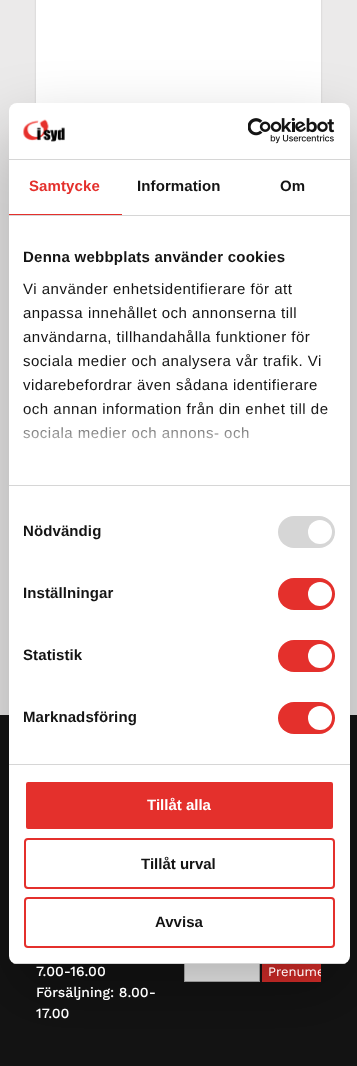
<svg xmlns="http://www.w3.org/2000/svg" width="357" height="1066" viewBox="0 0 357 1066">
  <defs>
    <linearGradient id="g1" gradientUnits="userSpaceOnUse" x1="173" y1="485" x2="173" y2="410"><stop offset="0" stop-color="rgb(255,255,255)"/><stop offset="0.5" stop-color="rgb(255,255,255)" stop-opacity="0.8"/><stop offset="1" stop-color="rgb(255,255,255)" stop-opacity="0"/></linearGradient>
    <clipPath id="clip1"><rect x="9" y="103" width="341" height="861" rx="8"/></clipPath>
    <clipPath id="clip2"><rect x="262" y="961" width="59" height="21"/></clipPath>
  </defs>
  <rect width="100%" height="100%" fill="rgb(235,234,234)"/>
  <rect x="36" y="-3" width="285" height="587" fill="rgba(0,0,0,0.15)" filter="blur(1px)"/>
  <rect x="36" y="0" width="285" height="103" fill="rgb(255,255,255)"/>
  <rect x="0" y="715" width="357" height="351" fill="rgb(20,20,20)"/>
  <rect x="185" y="964" width="74" height="17" fill="rgb(255,255,255)"/>
  <rect x="184.5" y="961.5" width="75" height="20" fill="none" stroke="rgb(187,187,187)"/>
  <rect x="262" y="964" width="59" height="18" fill="rgb(228,48,44)"/>
  <rect x="9" y="135" width="341" height="861" rx="8" fill="rgba(0,0,0,0.3)" filter="blur(34px)"/>
  <rect x="9" y="103" width="341" height="861" rx="8" fill="rgb(255,255,255)"/>
  <rect x="9" y="159" width="341" height="1" fill="rgb(214,214,214)"/>
  <image x="23" y="119" width="42" height="23" href="pic1.png"/>
  <image x="248" y="118" width="87" height="26" href="pic2.png"/>
  <rect x="9" y="215" width="341" height="1" fill="rgb(214,214,214)"/>
  <rect x="9" y="214" width="113" height="1" fill="rgb(228,48,44)"/>
  <text x="29" y="191" font-family="Liberation Sans" font-size="15" font-weight="bold" letter-spacing="0.1" fill="rgb(228,48,44)">Samtycke</text>
  <g font-family="Liberation Sans" font-size="15" font-weight="bold" letter-spacing="0.1" fill="rgb(20,20,20)">
    <text x="137" y="191">Information</text>
    <text x="280" y="191">Om</text>
  </g>
  <rect x="9" y="485" width="341" height="1" fill="rgb(214,214,214)"/>
  <text x="23" y="262" font-family="Liberation Sans" font-size="15" font-weight="bold" letter-spacing="0.25" fill="rgb(20,20,20)">Denna webbplats använder cookies</text>
  <g font-family="Liberation Sans" font-size="15" letter-spacing="0.5" fill="rgb(20,20,20)">
    <text>
      <tspan x="23" y="294">Vi använder enhetsidentifierare för att</tspan>
      <tspan x="23" y="318">anpassa innehållet och annonserna till</tspan>
      <tspan x="23" y="342">användarna, tillhandahålla funktioner för</tspan>
      <tspan x="23" y="366">sociala medier och analysera vår trafik. Vi</tspan>
      <tspan x="23" y="390">vidarebefordrar även sådana identifierare</tspan>
      <tspan x="23" y="414">och annan information från din enhet till de</tspan>
      <tspan x="23" y="438">sociala medier och annons- och</tspan>
    </text>
  </g>
  <rect x="23" y="411" width="304" height="28" fill="url(#g1)"/>
  <rect x="9" y="764" width="341" height="1" fill="rgb(214,214,214)"/>
  <text x="23" y="536" font-family="Liberation Sans" font-size="15" font-weight="bold" letter-spacing="0.1" fill="rgb(20,20,20)">Nödvändig</text>
  <rect x="278" y="516" width="57" height="32" rx="16" fill="rgb(214,214,214)"/>
  <circle cx="320" cy="532" r="12" fill="rgb(255,255,255)"/>
  <text x="23" y="598" font-family="Liberation Sans" font-size="15" font-weight="bold" letter-spacing="0.1" fill="rgb(20,20,20)">Inställningar</text>
  <rect x="278" y="578" width="57" height="32" rx="16" fill="rgb(228,48,44)"/>
  <circle cx="320" cy="594" r="12" fill="rgb(255,255,255)"/>
  <text x="23" y="660" font-family="Liberation Sans" font-size="15" font-weight="bold" letter-spacing="0.1" fill="rgb(20,20,20)">Statistik</text>
  <rect x="278" y="640" width="57" height="32" rx="16" fill="rgb(228,48,44)"/>
  <circle cx="320" cy="656" r="12" fill="rgb(255,255,255)"/>
  <text x="23" y="722" font-family="Liberation Sans" font-size="15" font-weight="bold" letter-spacing="0.1" fill="rgb(20,20,20)">Marknadsföring</text>
  <rect x="278" y="702" width="57" height="32" rx="16" fill="rgb(228,48,44)"/>
  <circle cx="320" cy="718" r="12" fill="rgb(255,255,255)"/>
  <g clip-path="url(#clip1)">
    <rect x="9" y="963" width="341" height="1" fill="rgb(214,214,214)"/>
  </g>
  <rect x="25" y="781" width="309" height="49" rx="3" fill="rgb(228,48,44)" stroke="rgb(255,255,255)" stroke-width="2"/>
  <text x="147" y="810" font-family="Liberation Sans" font-size="15" font-weight="bold" fill="rgb(255,255,255)">Tillåt alla</text>
  <rect x="25" y="839" width="309" height="49" rx="3" fill="none" stroke="rgb(228,48,44)" stroke-width="2"/>
  <text x="141" y="869" font-family="Liberation Sans" font-size="15" font-weight="bold" fill="rgb(20,20,20)">Tillåt urval</text>
  <rect x="25" y="898" width="309" height="49" rx="3" fill="none" stroke="rgb(228,48,44)" stroke-width="2"/>
  <text x="155" y="927" font-family="Liberation Sans" font-size="15" font-weight="bold" fill="rgb(20,20,20)">Avvisa</text>
  <g font-family="Work Sans" font-size="14" font-weight="500" fill="rgb(255,255,255)">
    <text>
      <tspan x="36" y="976">7.00-16.00</tspan>
      <tspan x="36" y="997">Försäljning: 8.00-</tspan>
      <tspan x="36" y="1018">17.00</tspan>
    </text>
  </g>
  <g clip-path="url(#clip2)">
    <text x="268" y="976" font-family="Work Sans" font-size="13" fill="rgb(255,255,255)">Prenume</text>
  </g>
</svg>
